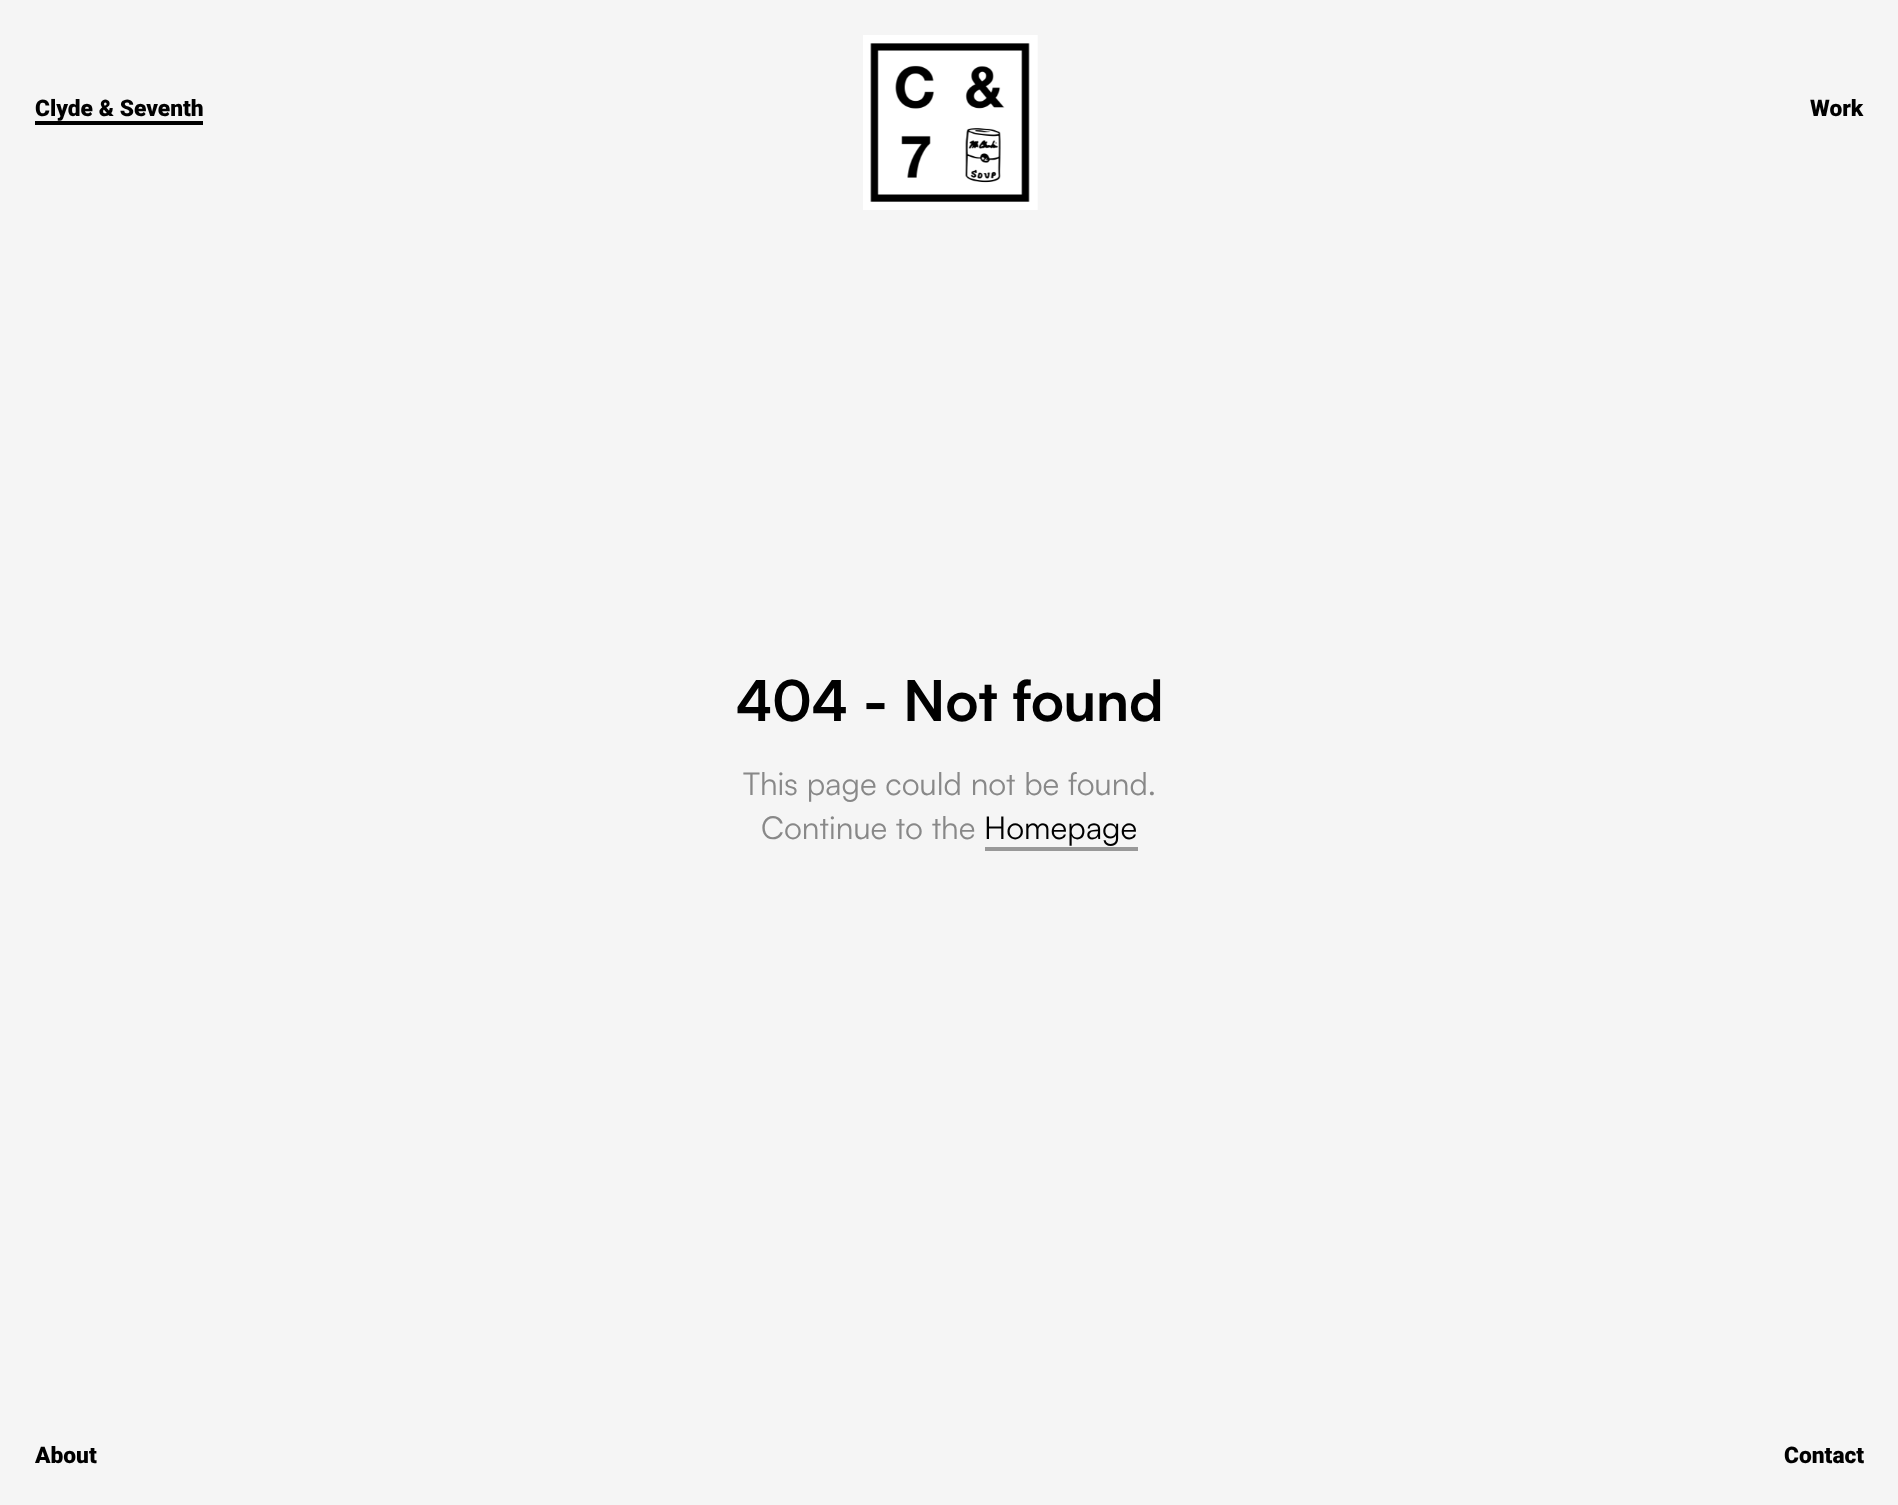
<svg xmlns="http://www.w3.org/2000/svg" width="1898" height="1505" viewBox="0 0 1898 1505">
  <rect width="100%" height="100%" fill="rgb(245,245,245)"/>
  <text x="35" y="116" font-family="Roboto" font-size="22.75" font-weight="900" fill="rgb(0,0,0)">Clyde &amp; Seventh</text>
  <rect x="35" y="121" width="168" height="4" fill="rgb(0,0,0)"/>
  <image x="863" y="35" width="175" height="175" href="pic1.png"/>
  <g font-family="Roboto" font-size="22.75" font-weight="900" fill="rgb(0,0,0)">
    <text x="1810" y="116">Work</text>
    <text x="35" y="1463">About</text>
    <text x="1784" y="1463">Contact</text>
  </g>
  <text x="736" y="721" font-family="Satoshi" font-size="56" font-weight="bold" fill="rgb(0,0,0)">404 - Not found</text>
  <g font-family="Satoshi" font-size="31.5" fill="rgb(136,136,136)">
    <text x="743" y="795">This page could not be found.</text>
    <text x="761" y="839">Continue to the</text>
  </g>
  <text x="984" y="839" font-family="Satoshi" font-size="31.5" fill="rgb(0,0,0)">Homepage</text>
  <rect x="985" y="847" width="153" height="4" fill="rgb(153,153,153)"/>
</svg>
